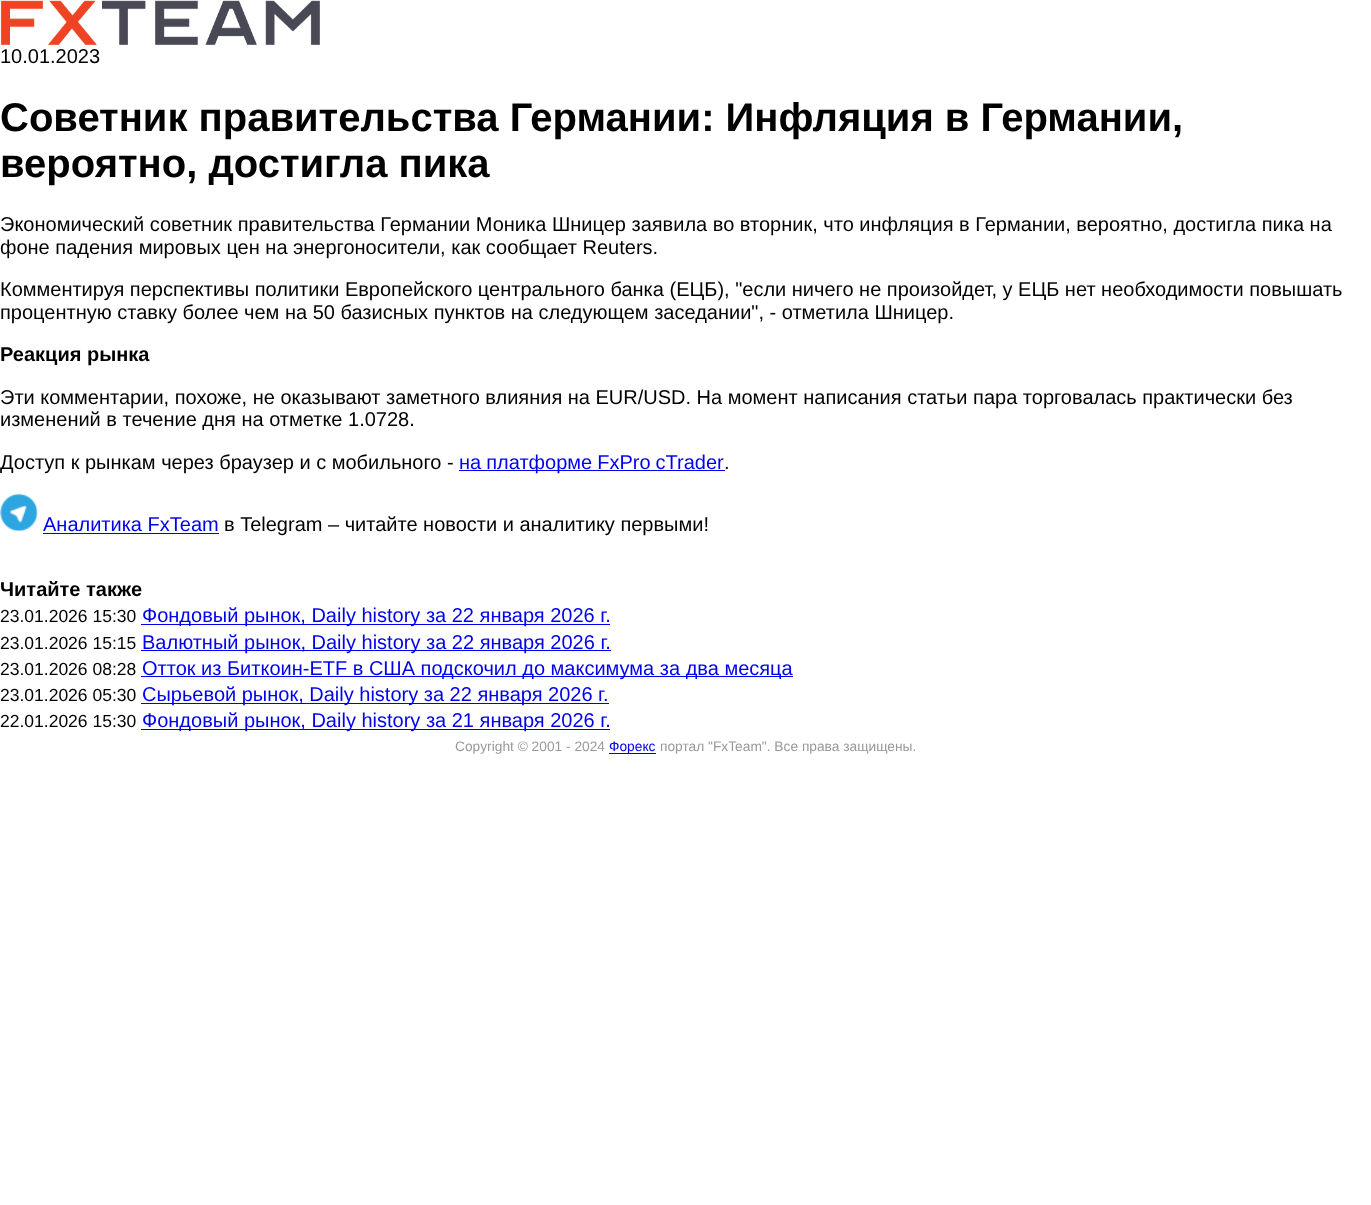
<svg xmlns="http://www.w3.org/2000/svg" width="1371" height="1205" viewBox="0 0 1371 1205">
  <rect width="100%" height="100%" fill="rgb(255,255,255)"/>
  <image x="0" y="0" width="320" height="45" href="pic1.png"/>
  <text x="0" y="63" font-family="Liberation Sans" font-size="20" fill="rgb(0,0,0)">10.01.2023</text>
  <g font-family="Liberation Sans" font-size="40" font-weight="bold" fill="rgb(0,0,0)">
    <text>
      <tspan x="0" y="131">Советник правительства Германии: Инфляция в Германии,</tspan>
      <tspan x="0" y="177">вероятно, достигла пика</tspan>
    </text>
  </g>
  <g font-family="Liberation Sans" font-size="20" fill="rgb(0,0,0)">
    <text>
      <tspan x="0" y="231">Экономический советник правительства Германии Моника Шницер заявила во вторник, что инфляция в Германии, вероятно, достигла пика на</tspan>
      <tspan x="0" y="254">фоне падения мировых цен на энергоносители, как сообщает Reuters.</tspan>
    </text>
    <text>
      <tspan x="0" y="296">Комментируя перспективы политики Европейского центрального банка (ЕЦБ), "если ничего не произойдет, у ЕЦБ нет необходимости повышать</tspan>
      <tspan x="0" y="319">процентную ставку более чем на 50 базисных пунктов на следующем заседании", - отметила Шницер.</tspan>
    </text>
  </g>
  <text x="0" y="361" font-family="Liberation Sans" font-size="20" font-weight="bold" fill="rgb(0,0,0)">Реакция рынка</text>
  <g font-family="Liberation Sans" font-size="20" fill="rgb(0,0,0)">
    <text>
      <tspan x="0" y="404">Эти комментарии, похоже, не оказывают заметного влияния на EUR/USD. На момент написания статьи пара торговалась практически без</tspan>
      <tspan x="0" y="426">изменений в течение дня на отметке 1.0728.</tspan>
    </text>
    <text x="0" y="469">Доступ к рынкам через браузер и с мобильного -</text>
  </g>
  <rect x="459" y="470" width="266" height="1" fill="rgb(0,0,238)"/>
  <text x="459" y="469" word-spacing="-0.5" font-family="Liberation Sans" font-size="20" fill="rgb(0,0,238)">на платформе FxPro cTrader</text>
  <text x="724" y="469" font-family="Liberation Sans" font-size="20" fill="rgb(0,0,0)">.</text>
  <image x="0" y="493" width="38" height="39" href="pic2.png"/>
  <text x="43" y="531" font-family="Liberation Sans" font-size="20" fill="rgb(0,0,238)">Аналитика FxTeam</text>
  <rect x="43" y="533" width="176" height="1" fill="rgb(0,0,238)"/>
  <text x="224" y="531" font-family="Liberation Sans" font-size="20" fill="rgb(0,0,0)">в Telegram – читайте новости и аналитику первыми!</text>
  <text x="0" y="596" font-family="Liberation Sans" font-size="20" font-weight="bold" fill="rgb(0,0,0)">Читайте также</text>
  <text x="0" y="622" font-family="Liberation Sans" font-size="17.5" fill="rgb(0,0,0)">23.01.2026 15:30</text>
  <rect x="141" y="624" width="469" height="1" fill="rgb(0,0,238)"/>
  <text x="142" y="622" font-family="Liberation Sans" font-size="20" fill="rgb(0,0,238)">Фондовый рынок, Daily history за 22 января 2026 г.</text>
  <text x="0" y="649" font-family="Liberation Sans" font-size="17.5" fill="rgb(0,0,0)">23.01.2026 15:15</text>
  <rect x="141" y="650" width="470" height="1" fill="rgb(0,0,238)"/>
  <text x="142" y="649" font-family="Liberation Sans" font-size="20" fill="rgb(0,0,238)">Валютный рынок, Daily history за 22 января 2026 г.</text>
  <text x="0" y="675" font-family="Liberation Sans" font-size="17.5" fill="rgb(0,0,0)">23.01.2026 08:28</text>
  <rect x="141" y="676" width="652" height="1" fill="rgb(0,0,238)"/>
  <text x="142" y="675" font-family="Liberation Sans" font-size="20" fill="rgb(0,0,238)">Отток из Биткоин-ETF в США подскочил до максимума за два месяца</text>
  <text x="0" y="701" font-family="Liberation Sans" font-size="17.5" fill="rgb(0,0,0)">23.01.2026 05:30</text>
  <rect x="141" y="703" width="468" height="1" fill="rgb(0,0,238)"/>
  <text x="142" y="701" font-family="Liberation Sans" font-size="20" fill="rgb(0,0,238)">Сырьевой рынок, Daily history за 22 января 2026 г.</text>
  <text x="0" y="727" font-family="Liberation Sans" font-size="17.5" fill="rgb(0,0,0)">22.01.2026 15:30</text>
  <rect x="141" y="729" width="469" height="1" fill="rgb(0,0,238)"/>
  <text x="142" y="727" font-family="Liberation Sans" font-size="20" fill="rgb(0,0,238)">Фондовый рынок, Daily history за 21 января 2026 г.</text>
  <text x="455" y="751" font-family="Liberation Sans" font-size="13.75" fill="rgb(153,153,153)">Copyright © 2001 - 2024</text>
  <rect x="609" y="753" width="47" height="1" fill="rgb(0,0,238)"/>
  <text x="609" y="751" font-family="Liberation Sans" font-size="13.75" fill="rgb(0,0,238)">Форекс</text>
  <text x="660" y="751" font-family="Liberation Sans" font-size="13.75" fill="rgb(153,153,153)">портал "FxTeam". Все права защищены.</text>
</svg>
